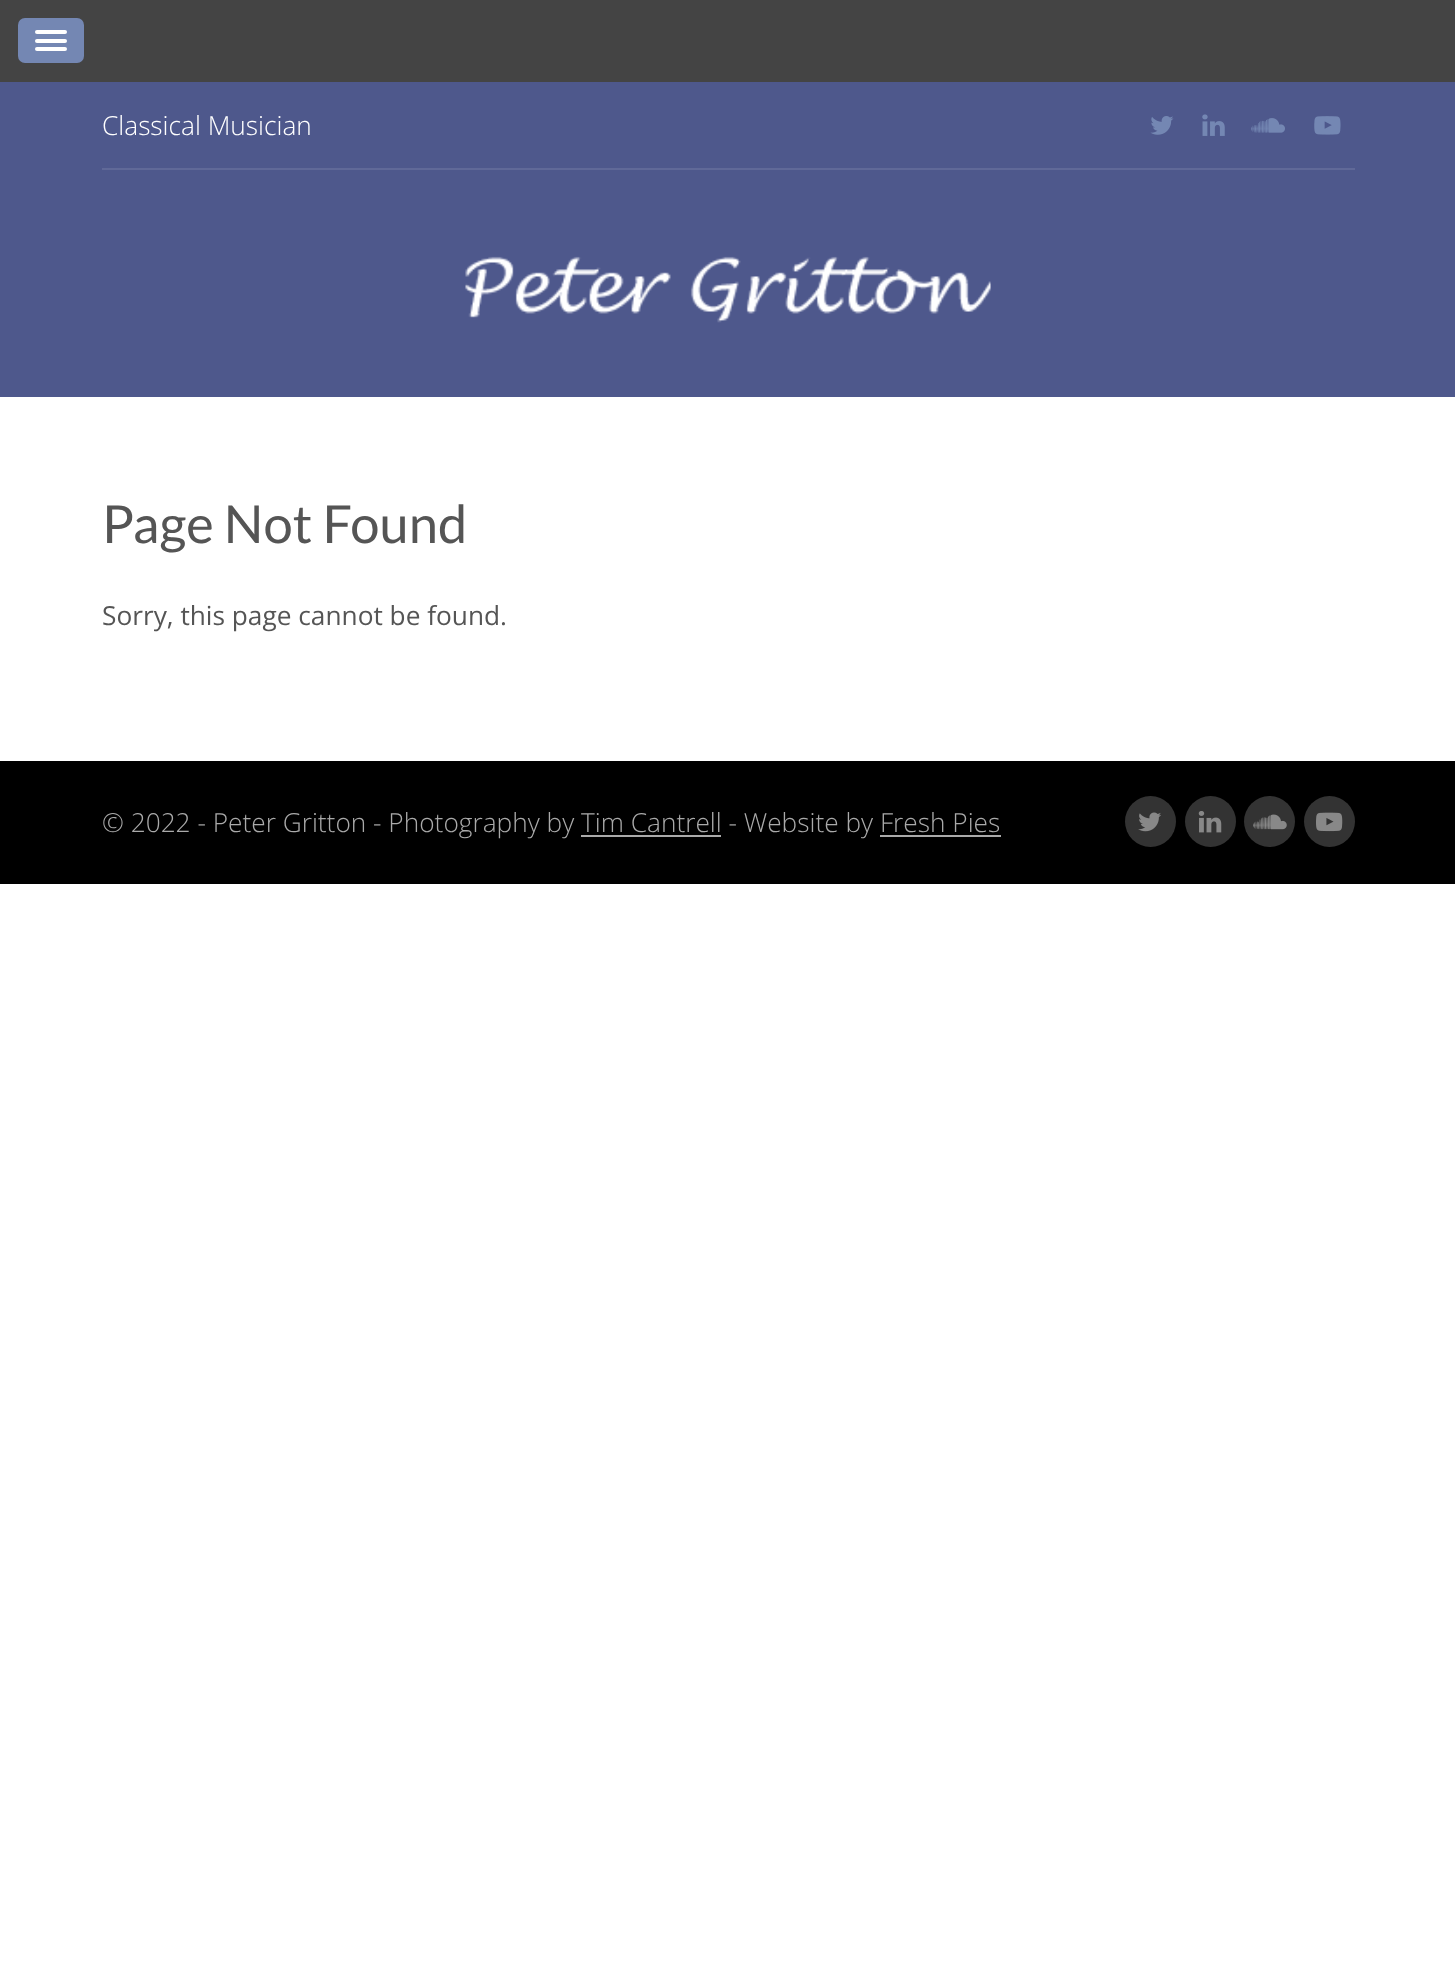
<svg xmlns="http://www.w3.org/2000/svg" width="1455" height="1972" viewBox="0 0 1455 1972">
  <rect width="100%" height="100%" fill="rgb(255,255,255)"/>
  <rect x="0" y="0" width="1455" height="82" fill="rgb(68,68,68)"/>
  <rect x="18" y="18" width="66" height="45" rx="7" fill="rgb(116,135,179)"/>
  <rect x="35" y="30" width="32" height="4" rx="2" fill="rgb(255,255,255)"/>
  <rect x="35" y="39" width="32" height="4" rx="2" fill="rgb(255,255,255)"/>
  <rect x="35" y="47" width="32" height="4" rx="2" fill="rgb(255,255,255)"/>
  <rect x="0" y="82" width="1455" height="315" fill="rgb(78,88,140)"/>
  <rect x="102" y="168" width="1253" height="2" fill="rgb(96,105,152)"/>
  <text x="102" y="135" font-family="Open Sans" font-size="26.25" font-weight="300" fill="rgb(255,255,255)">Classical Musician</text>
  <image x="1150" y="116" width="24" height="19" href="pic1.png"/>
  <image x="1202" y="114" width="23" height="22" href="pic2.png"/>
  <image x="1251" y="118" width="34" height="15" href="pic3.png"/>
  <image x="1314" y="116" width="27" height="19" href="pic4.png"/>
  <image x="465" y="256" width="526" height="67" href="pic5.png"/>
  <text x="102" y="543" font-family="Lato" font-size="52.5" fill="rgb(85,85,85)">Page Not Found</text>
  <text x="102" y="625" font-family="Open Sans" font-size="26.25" fill="rgb(85,85,85)">Sorry, this page cannot be found.</text>
  <rect x="0" y="761" width="1455" height="123" fill="rgb(0,0,0)"/>
  <text x="102" y="832" font-family="Open Sans" font-size="26.25" font-weight="300" fill="rgb(170,170,170)">© 2022 - Peter Gritton - Photography by Tim Cantrell - Website by Fresh Pies</text>
  <rect x="581" y="835" width="140" height="2" fill="rgb(170,170,170)"/>
  <rect x="880" y="835" width="121" height="2" fill="rgb(170,170,170)"/>
  <circle cx="1150.5" cy="821.5" r="25.5" fill="rgb(51,51,51)"/>
  <image x="1138" y="812" width="23" height="20" href="pic6.png"/>
  <circle cx="1210.5" cy="821.5" r="25.5" fill="rgb(51,51,51)"/>
  <image x="1198" y="811" width="24" height="22" href="pic7.png"/>
  <circle cx="1269.5" cy="821.5" r="25.5" fill="rgb(51,51,51)"/>
  <image x="1253" y="814" width="34" height="16" href="pic8.png"/>
  <circle cx="1329.5" cy="821.5" r="25.5" fill="rgb(51,51,51)"/>
  <image x="1316" y="812" width="27" height="20" href="pic9.png"/>
</svg>
